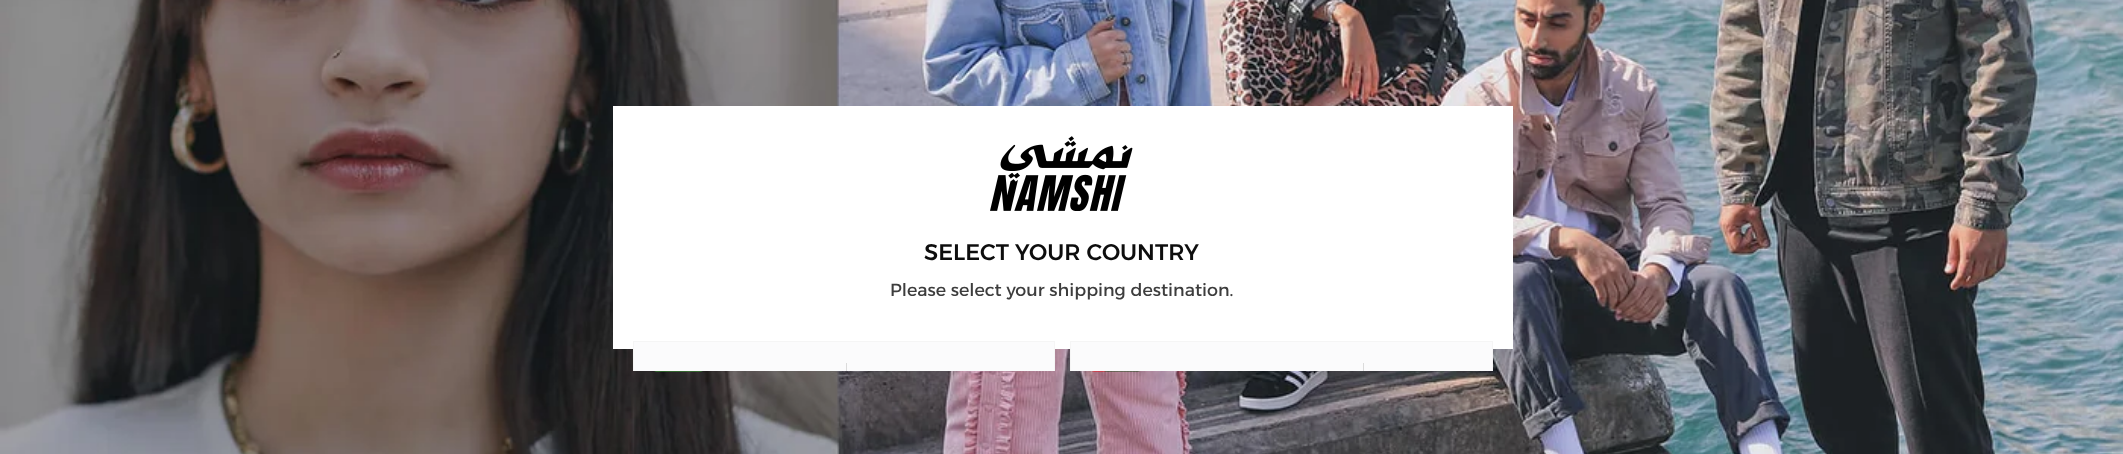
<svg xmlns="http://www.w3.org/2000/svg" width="2123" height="454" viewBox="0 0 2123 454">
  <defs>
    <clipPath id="clip1"><rect x="633" y="341" width="860" height="30"/></clipPath>
  </defs>
  <rect width="100%" height="100%" fill="rgb(255,255,255)"/>
  <image x="0" y="0" width="2123" height="454" href="pic1.png"/>
  <rect x="613" y="106" width="900" height="243" fill="rgb(255,255,255)"/>
  <image x="990" y="136" width="143" height="75" href="pic2.png"/>
  <text x="924" y="260" font-family="Alexandria" font-size="22.5" font-weight="500" fill="rgb(13,13,13)">SELECT YOUR COUNTRY</text>
  <text x="890" y="296" font-family="Alexandria" font-size="17.5" fill="rgb(61,61,61)">Please select your shipping destination.</text>
  <rect x="634" y="342" width="420" height="29" fill="rgb(251,251,252)"/>
  <g clip-path="url(#clip1)">
    <rect x="633.5" y="341.5" width="421" height="92" fill="none" stroke="rgb(245,245,245)"/>
  </g>
  <rect x="846" y="363" width="1" height="8" fill="rgb(219,219,219)"/>
  <image x="654" y="371" width="49" height="1" href="pic3.png"/>
  <rect x="1071" y="342" width="421" height="29" fill="rgb(251,251,252)"/>
  <g clip-path="url(#clip1)">
    <rect x="1070.5" y="341.5" width="422" height="92" fill="none" stroke="rgb(245,245,245)"/>
  </g>
  <rect x="1363" y="363" width="1" height="8" fill="rgb(219,219,219)"/>
  <image x="1092" y="371" width="48" height="1" href="pic4.png"/>
</svg>
